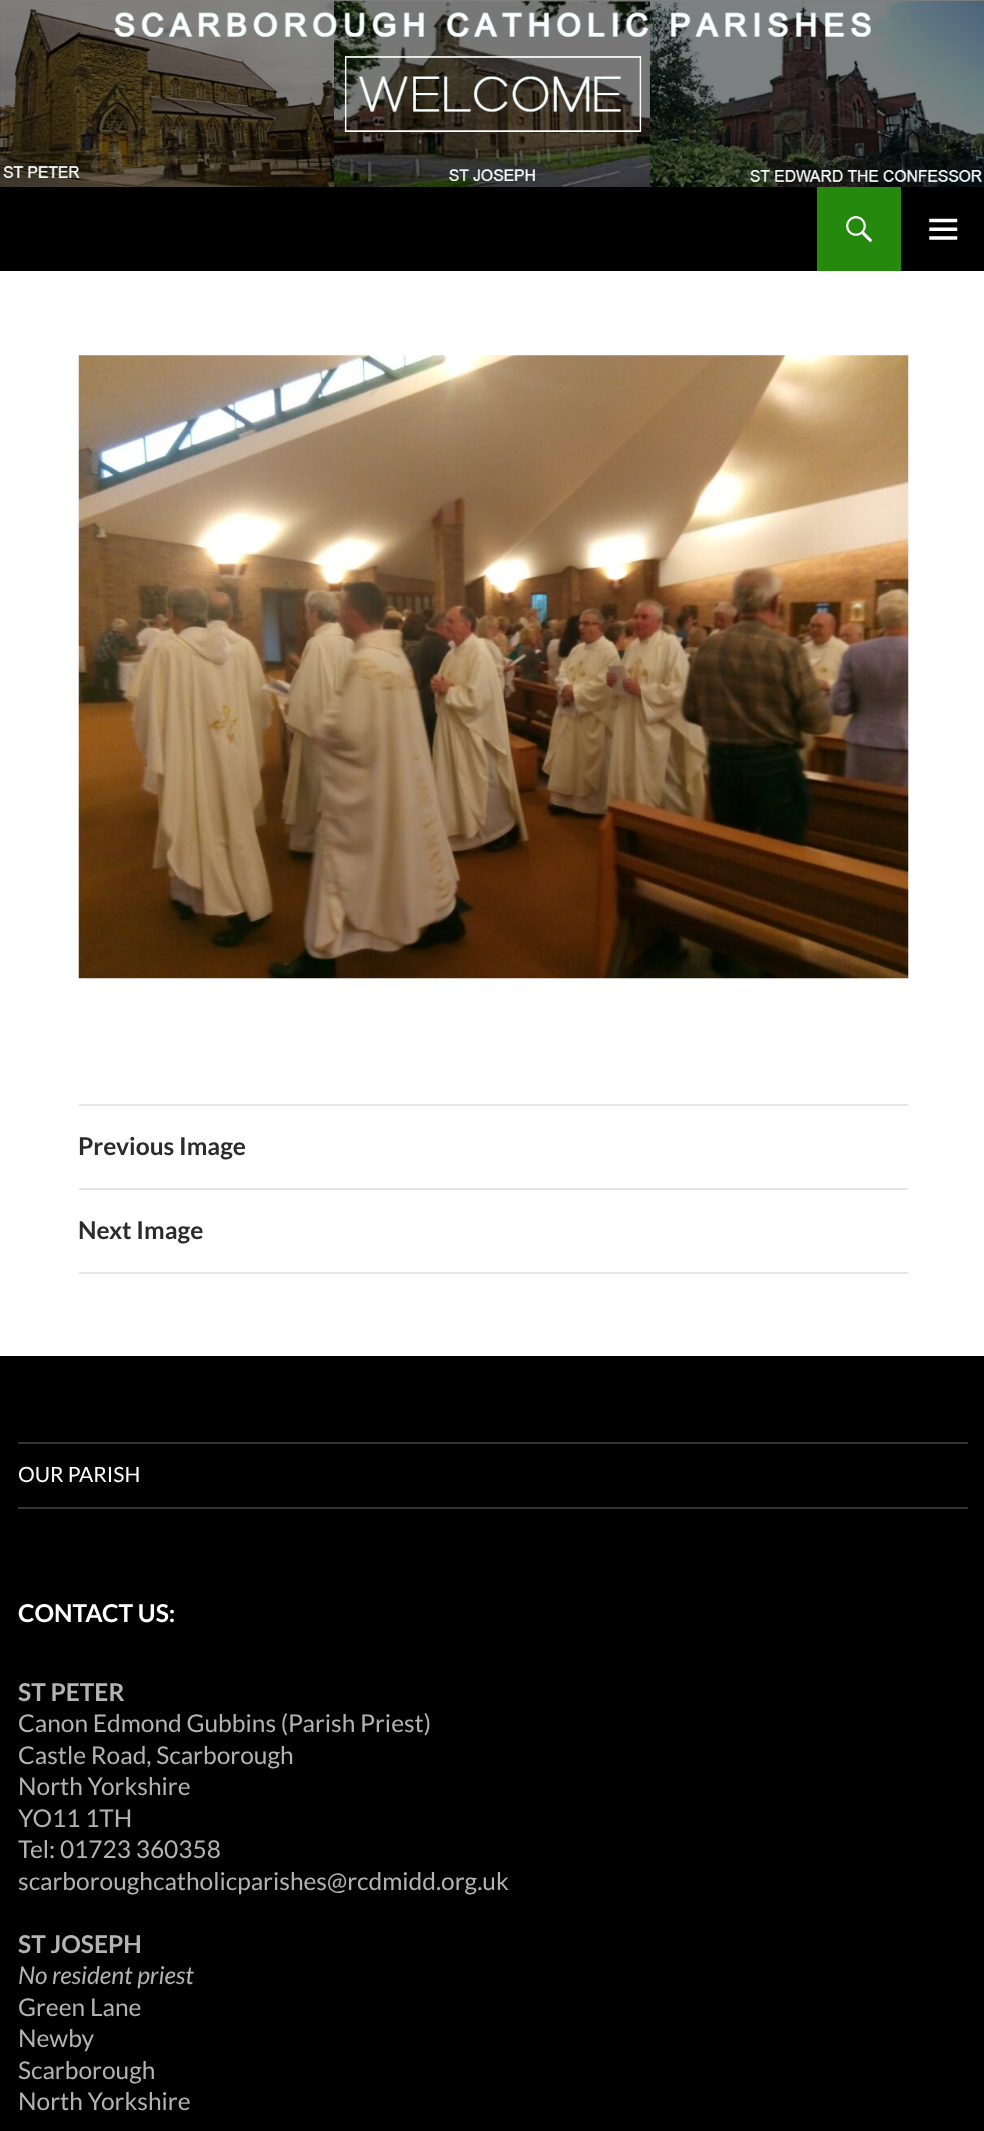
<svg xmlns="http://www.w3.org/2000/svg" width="984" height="2131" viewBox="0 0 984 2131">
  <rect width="100%" height="100%" fill="rgb(255,255,255)"/>
  <image x="0" y="0" width="984" height="187" href="pic1.png"/>
  <rect x="0" y="187" width="984" height="84" fill="rgb(0,0,0)"/>
  <rect x="817" y="187" width="84" height="84" fill="rgb(36,137,13)"/>
  <image x="846" y="216" width="27" height="27" href="pic2.png"/>
  <image x="929" y="218" width="29" height="22" href="pic3.png"/>
  <image x="78" y="355" width="831" height="624" href="pic4.png"/>
  <rect x="79" y="1104" width="829" height="2" fill="rgb(230,230,230)"/>
  <rect x="79" y="1188" width="829" height="2" fill="rgb(230,230,230)"/>
  <text x="78" y="1155" font-family="Lato" font-size="24.5" font-weight="bold" fill="rgb(43,43,43)">Previous Image</text>
  <rect x="79" y="1272" width="829" height="2" fill="rgb(230,230,230)"/>
  <text x="78" y="1239" font-family="Lato" font-size="24.5" font-weight="bold" fill="rgb(43,43,43)">Next Image</text>
  <rect x="0" y="1356" width="984" height="775" fill="rgb(0,0,0)"/>
  <rect x="18" y="1507" width="950" height="2" fill="rgb(51,51,51)"/>
  <rect x="18" y="1442" width="950" height="2" fill="rgb(51,51,51)"/>
  <text x="18" y="1482" font-family="Lato" font-size="21" fill="rgb(255,255,255)">OUR PARISH</text>
  <text x="18" y="1622" font-family="Lato" font-size="24.5" font-weight="bold" fill="rgb(255,255,255)">CONTACT US:</text>
  <text x="18" y="1701" font-family="Lato" font-size="24.5" font-weight="bold" fill="rgb(179,179,179)">ST PETER</text>
  <g font-family="Lato" font-size="24.5" fill="rgb(179,179,179)">
    <text>
      <tspan x="18" y="1732">Canon Edmond Gubbins (Parish Priest)</tspan>
      <tspan x="18" y="1764">Castle Road, Scarborough</tspan>
      <tspan x="18" y="1795">North Yorkshire</tspan>
      <tspan x="18" y="1827">YO11 1TH</tspan>
      <tspan x="18" y="1858">Tel: 01723 360358</tspan>
      <tspan x="18" y="1890">scarboroughcatholicparishes@rcdmidd.org.uk</tspan>
    </text>
  </g>
  <text x="18" y="1953" font-family="Lato" font-size="24.5" font-weight="bold" fill="rgb(179,179,179)">ST JOSEPH</text>
  <text x="18" y="1984" font-family="Lato" font-size="24.5" font-style="italic" fill="rgb(179,179,179)">No resident priest</text>
  <g font-family="Lato" font-size="24.5" fill="rgb(179,179,179)">
    <text>
      <tspan x="18" y="2016">Green Lane</tspan>
      <tspan x="18" y="2047">Newby</tspan>
      <tspan x="18" y="2079">Scarborough</tspan>
      <tspan x="18" y="2110">North Yorkshire</tspan>
    </text>
  </g>
</svg>
